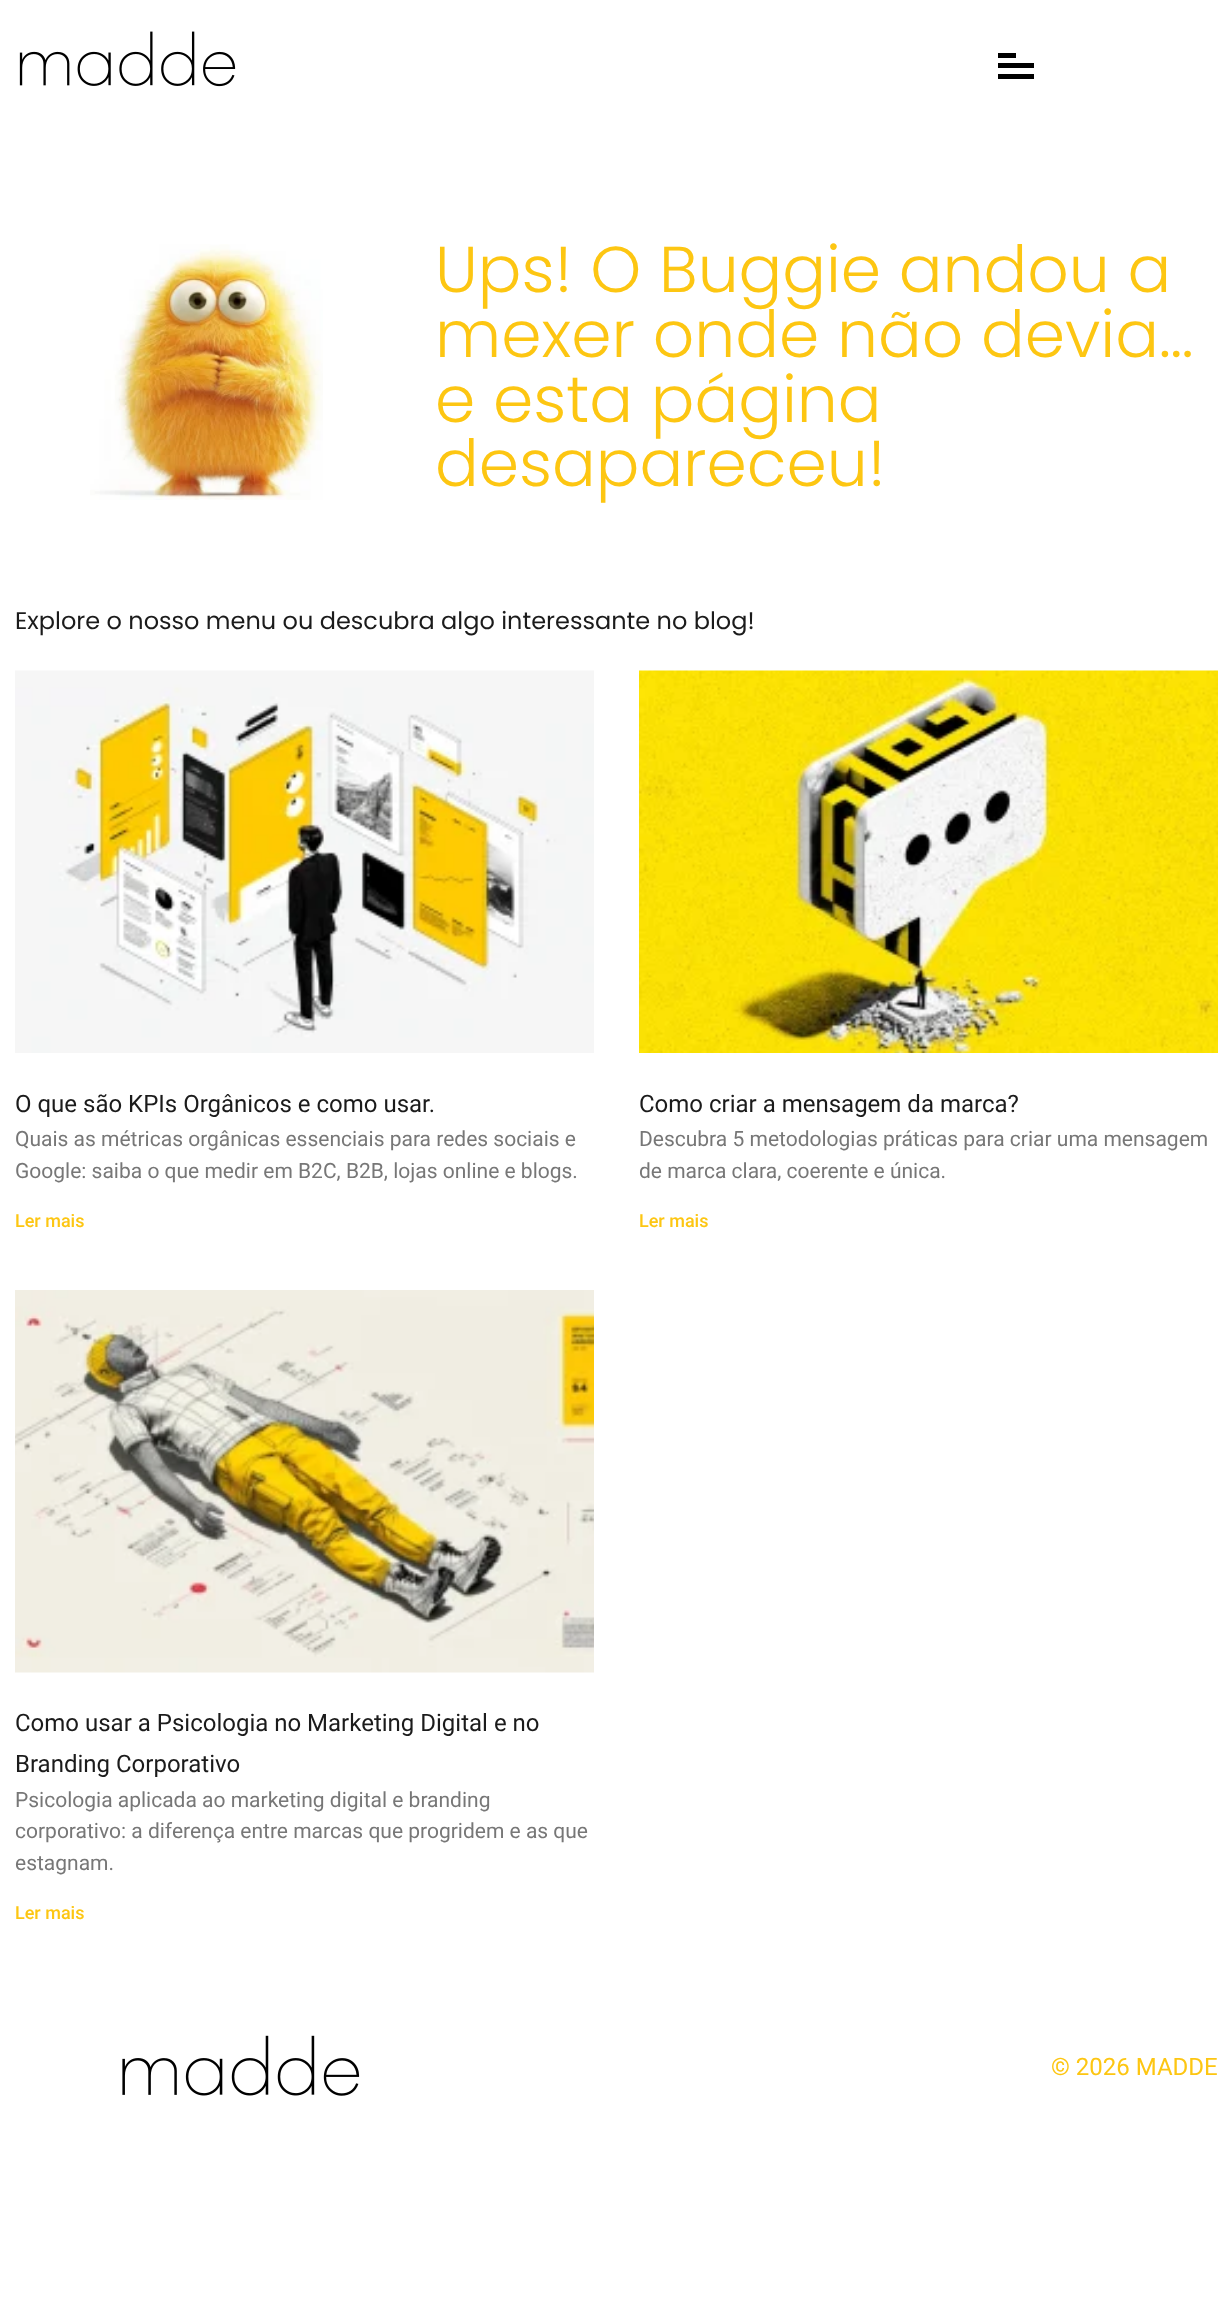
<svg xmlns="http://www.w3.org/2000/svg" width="1232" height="2312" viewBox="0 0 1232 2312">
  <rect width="100%" height="100%" fill="rgb(255,255,255)"/>
  <image x="19" y="31" width="217" height="56" href="pic1.png"/>
  <rect x="998" y="53" width="18" height="5" fill="rgb(0,0,0)"/>
  <rect x="998" y="63" width="36" height="5" fill="rgb(0,0,0)"/>
  <rect x="998" y="74" width="36" height="5" fill="rgb(0,0,0)"/>
  <image x="90" y="244" width="233" height="256" href="pic2.png"/>
  <g font-family="Poppins" font-size="64.75" font-weight="300" fill="rgb(253,198,18)">
    <text>
      <tspan x="435" y="292">Ups! O Buggie andou a</tspan>
      <tspan x="435" y="357">mexer onde não devia…</tspan>
      <tspan x="435" y="422">e esta página</tspan>
      <tspan x="435" y="486">desapareceu!</tspan>
    </text>
  </g>
  <text x="15" y="629" font-family="Poppins" font-size="24" fill="rgb(27,27,27)">Explore o nosso menu ou descubra algo interessante no blog!</text>
  <image x="15" y="670" width="579" height="383" href="pic3.png"/>
  <text x="15" y="1112" font-family="Roboto" font-size="24" fill="rgb(27,27,27)">O que são KPIs Orgânicos e como usar.</text>
  <g font-family="Roboto" font-size="21" fill="rgb(119,119,119)">
    <text>
      <tspan x="15" y="1146">Quais as métricas orgânicas essenciais para redes sociais e</tspan>
      <tspan x="15" y="1178">Google: saiba o que medir em B2C, B2B, lojas online e blogs.</tspan>
    </text>
  </g>
  <text x="15" y="1227" font-family="Roboto" font-size="18" font-weight="500" fill="rgb(253,198,18)">Ler mais</text>
  <image x="639" y="670" width="579" height="383" href="pic4.png"/>
  <text x="639" y="1112" font-family="Roboto" font-size="24" fill="rgb(27,27,27)">Como criar a mensagem da marca?</text>
  <g font-family="Roboto" font-size="21" fill="rgb(119,119,119)">
    <text>
      <tspan x="639" y="1146">Descubra 5 metodologias práticas para criar uma mensagem</tspan>
      <tspan x="639" y="1178">de marca clara, coerente e única.</tspan>
    </text>
  </g>
  <text x="639" y="1227" font-family="Roboto" font-size="18" font-weight="500" fill="rgb(253,198,18)">Ler mais</text>
  <image x="15" y="1290" width="579" height="383" href="pic5.png"/>
  <g font-family="Roboto" font-size="24" fill="rgb(27,27,27)">
    <text>
      <tspan x="15" y="1731">Como usar a Psicologia no Marketing Digital e no</tspan>
      <tspan x="15" y="1772">Branding Corporativo</tspan>
    </text>
  </g>
  <g font-family="Roboto" font-size="21" fill="rgb(119,119,119)">
    <text>
      <tspan x="15" y="1807">Psicologia aplicada ao marketing digital e branding</tspan>
      <tspan x="15" y="1838">corporativo: a diferença entre marcas que progridem e as que</tspan>
      <tspan x="15" y="1870">estagnam.</tspan>
    </text>
  </g>
  <text x="15" y="1919" font-family="Roboto" font-size="18" font-weight="500" fill="rgb(253,198,18)">Ler mais</text>
  <image x="122" y="2035" width="238" height="61" href="pic6.png"/>
  <text x="1051" y="2075" font-family="Roboto" font-size="24" fill="rgb(253,198,18)">© 2026 MADDE</text>
</svg>
